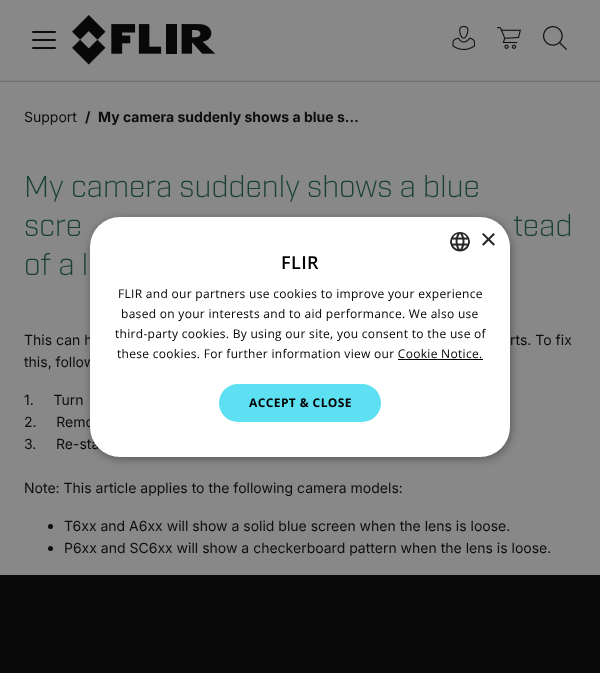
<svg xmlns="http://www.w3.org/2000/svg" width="600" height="673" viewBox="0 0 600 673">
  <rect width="100%" height="100%" fill="rgb(136,136,136)"/>
  <rect x="0" y="80" width="600" height="1" fill="rgb(128,128,128)"/>
  <rect x="32" y="31" width="24" height="2" rx="1" fill="rgb(13,13,13)"/>
  <rect x="32" y="39" width="24" height="2" rx="1" fill="rgb(13,13,13)"/>
  <rect x="32" y="47" width="24" height="2" rx="1" fill="rgb(13,13,13)"/>
  <image x="72" y="15" width="144" height="50" href="pic1.png"/>
  <image x="452" y="26" width="23" height="24" href="pic2.png"/>
  <image x="497" y="27" width="24" height="22" href="pic3.png"/>
  <image x="543" y="26" width="24" height="24" href="pic4.png"/>
  <rect x="0" y="81" width="600" height="1" fill="rgb(113,113,112)"/>
  <text x="24" y="122" font-family="Inter" font-size="14" fill="rgb(13,13,13)">Support</text>
  <g font-family="Inter" font-size="14" font-weight="bold" fill="rgb(13,13,13)">
    <text x="85" y="122">/</text>
    <text x="98" y="122">My camera suddenly shows a blue s…</text>
  </g>
  <g font-family="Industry" font-size="30" font-weight="300" fill="rgb(25,65,48)">
    <text>
      <tspan x="24" y="197">My camera suddenly shows a blue</tspan>
      <tspan x="24" y="236">scre</tspan>
    </text>
    <text x="513" y="236">tead</text>
    <text x="24" y="275">of a l</text>
  </g>
  <g font-family="Inter" font-size="14" fill="rgb(13,13,13)">
    <text x="24" y="345">This can h</text>
    <text x="510" y="345">rts. To fix</text>
    <text x="24" y="367">this, follow</text>
    <text xml:space="preserve"><tspan x="24" y="405">1.     Turn</tspan><tspan x="24" y="427">2.     Remo</tspan><tspan x="24" y="449">3.     Re-sta</tspan></text>
    <text x="24" y="493">Note: This article applies to the following camera models:</text>
  </g>
  <circle cx="50.5" cy="526.5" r="2.5" fill="rgb(13,13,13)"/>
  <text x="64" y="531" font-family="Inter" font-size="14" fill="rgb(13,13,13)">T6xx and A6xx will show a solid blue screen when the lens is loose.</text>
  <circle cx="50.5" cy="548.5" r="2.5" fill="rgb(13,13,13)"/>
  <text x="64" y="553" font-family="Inter" font-size="14" fill="rgb(13,13,13)">P6xx and SC6xx will show a checkerboard pattern when the lens is loose.</text>
  <rect x="91" y="219" width="420" height="240" rx="30" fill="rgba(0,0,0,0.35)" filter="blur(4px)"/>
  <rect x="90" y="217" width="420" height="240" rx="30" fill="rgb(255,255,255)"/>
  <image x="450" y="232" width="20" height="20" href="pic5.png"/>
  <text x="480" y="249" font-family="Liberation Sans" font-size="29" fill="rgb(38,38,38)">×</text>
  <text x="281" y="269" font-family="Open Sans" font-size="18" font-weight="600" letter-spacing="0.4" fill="rgb(0,0,0)">FLIR</text>
  <g font-family="Open Sans" font-size="12" letter-spacing="0.3" fill="rgb(0,0,0)">
    <text x="118" y="298">FLIR and our partners use cookies to improve your experience</text>
    <text x="121" y="318">based on your interests and to aid performance. We also use</text>
    <text x="115" y="338">third-party cookies. By using our site, you consent to the use of</text>
    <text x="117" y="358">these cookies. For further information view our Cookie Notice.</text>
  </g>
  <rect x="398" y="359" width="85" height="1" fill="rgb(0,0,0)"/>
  <rect x="219" y="384" width="162" height="38" rx="19" fill="rgb(92,224,242)"/>
  <text x="249" y="407" font-family="Open Sans" font-size="12" font-weight="bold" letter-spacing="0.4" fill="rgb(0,0,0)">ACCEPT &amp; CLOSE</text>
  <rect x="0" y="575" width="600" height="98" fill="rgb(9,9,9)"/>
</svg>
